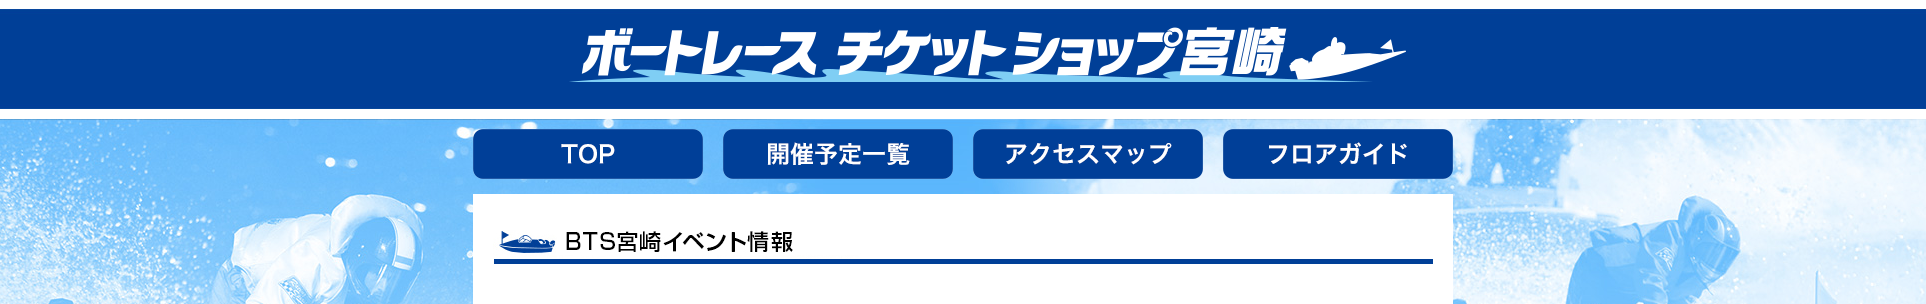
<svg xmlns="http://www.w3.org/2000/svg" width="1926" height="304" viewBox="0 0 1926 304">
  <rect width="100%" height="100%" fill="rgb(255,255,255)"/>
  <image x="0" y="9" width="1926" height="100" href="pic1.png"/>
  <image x="569" y="27" width="837" height="55" href="pic2.png"/>
  <image x="0" y="119" width="1926" height="185" href="pic3.png"/>
  <image x="473" y="129" width="230" height="50" href="pic4.png"/>
  <image x="723" y="129" width="230" height="50" href="pic5.png"/>
  <image x="973" y="129" width="230" height="50" href="pic6.png"/>
  <image x="1223" y="129" width="230" height="50" href="pic7.png"/>
  <rect x="473" y="194" width="980" height="110" fill="rgb(255,255,255)"/>
  <image x="493" y="230" width="940" height="34" href="pic8.png"/>
</svg>
